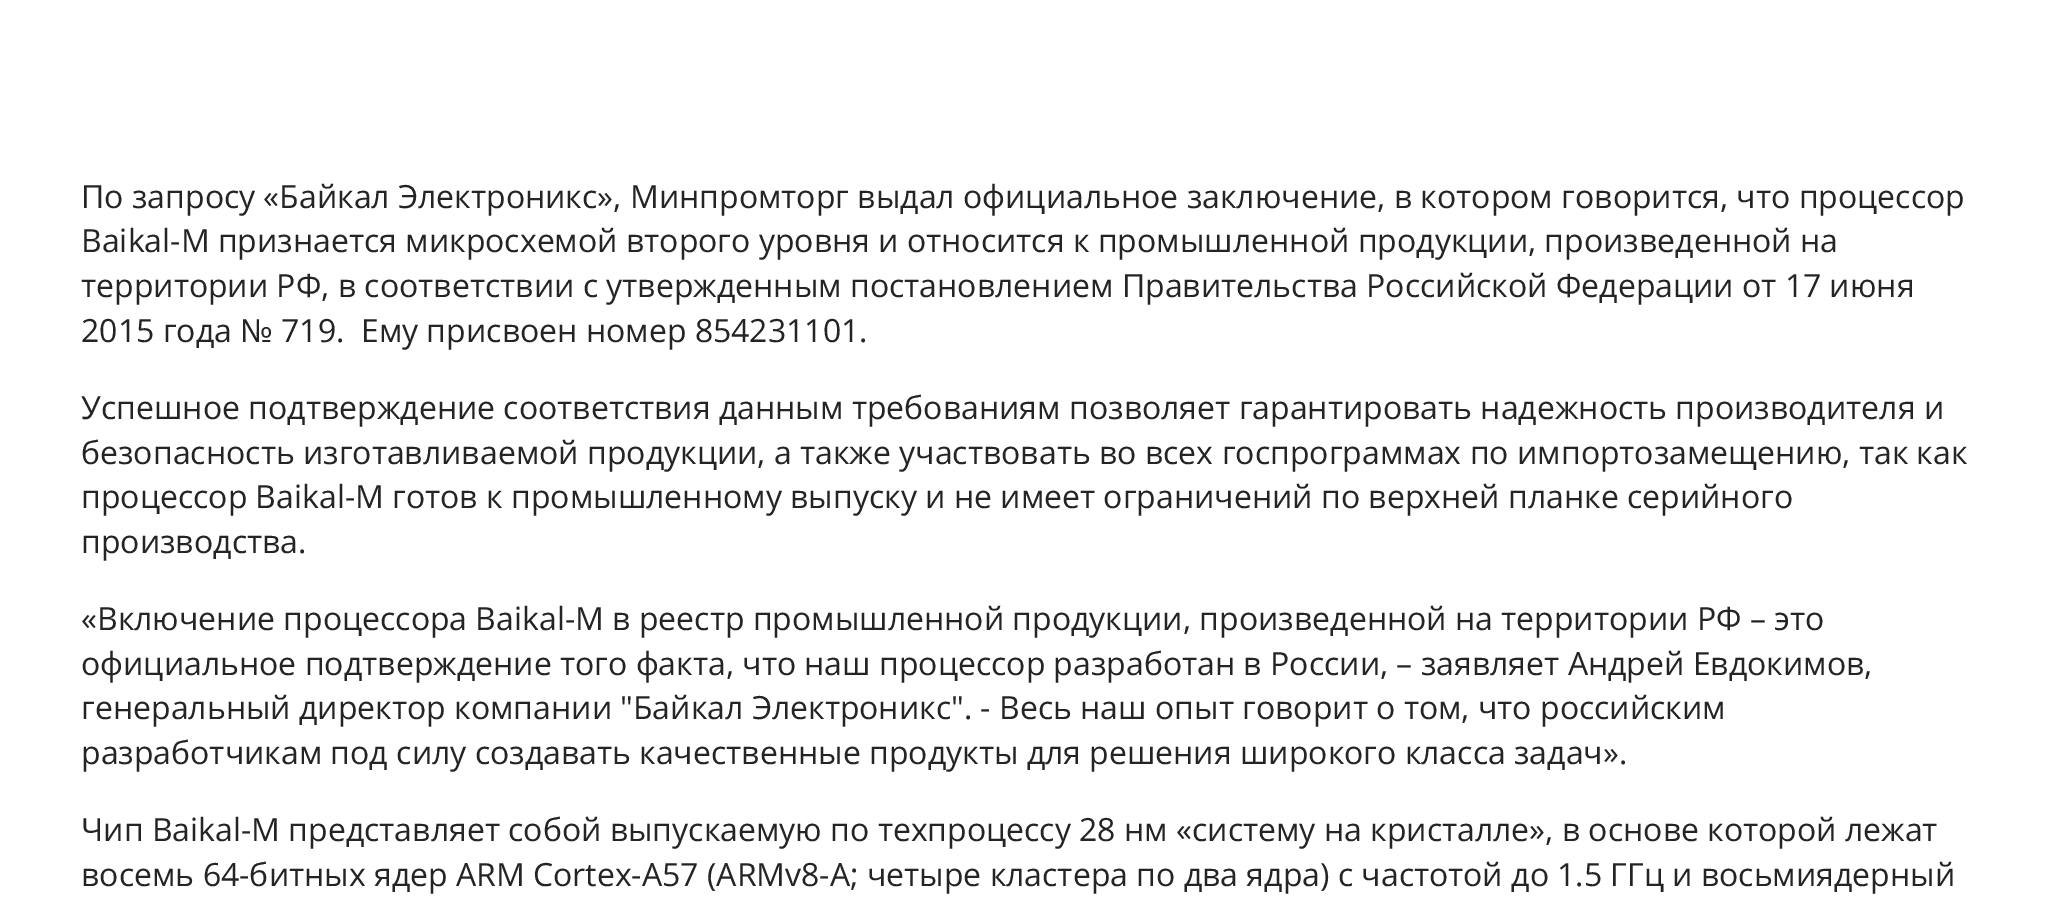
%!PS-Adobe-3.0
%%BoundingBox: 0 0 2053 901
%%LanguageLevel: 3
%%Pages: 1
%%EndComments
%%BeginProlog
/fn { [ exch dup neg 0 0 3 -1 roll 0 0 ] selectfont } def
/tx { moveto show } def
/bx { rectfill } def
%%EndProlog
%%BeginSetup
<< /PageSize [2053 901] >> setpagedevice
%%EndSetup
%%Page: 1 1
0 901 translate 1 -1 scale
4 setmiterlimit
1 setgray
0 0 2053 901 bx
/OpenSans-Regular 32 fn
0.141 setgray
(По запросу «Байкал Электроникс», Минпромторг выдал официальное заключение, в котором говорится, что процессор) 81 208 tx
(Baikal-M признается микросхемой второго уровня и относится к промышленной продукции, произведенной на) 81 252 tx
(территории РФ, в соответствии с утвержденным постановлением Правительства Российской Федерации от 17 июня) 81 297 tx
(2015 года № 719.  Ему присвоен номер 854231101.) 81 342 tx
(Успешное подтверждение соответствия данным требованиям позволяет гарантировать надежность производителя и) 81 419 tx
(безопасность изготавливаемой продукции, а также участвовать во всех госпрограммах по импортозамещению, так как) 81 464 tx
(процессор Baikal-M готов к промышленному выпуску и не имеет ограничений по верхней планке серийного) 81 508 tx
(производства.) 81 553 tx
(«Включение процессора Baikal-M в реестр промышленной продукции, произведенной на территории РФ – это) 81 630 tx
(официальное подтверждение того факта, что наш процессор разработан в России, – заявляет Андрей Евдокимов,) 81 675 tx
(генеральный директор компании "Байкал Электроникс". - Весь наш опыт говорит о том, что российским) 81 719 tx
(разработчикам под силу создавать качественные продукты для решения широкого класса задач».) 81 764 tx
(Чип Baikal-M представляет собой выпускаемую по техпроцессу 28 нм «систему на кристалле», в основе которой лежат) 81 841 tx
(восемь 64-битных ядер ARM Cortex-A57 \(ARMv8-A; четыре кластера по два ядра\) с частотой до 1.5 ГГц и восьмиядерный) 81 886 tx
showpage
%%EOF
